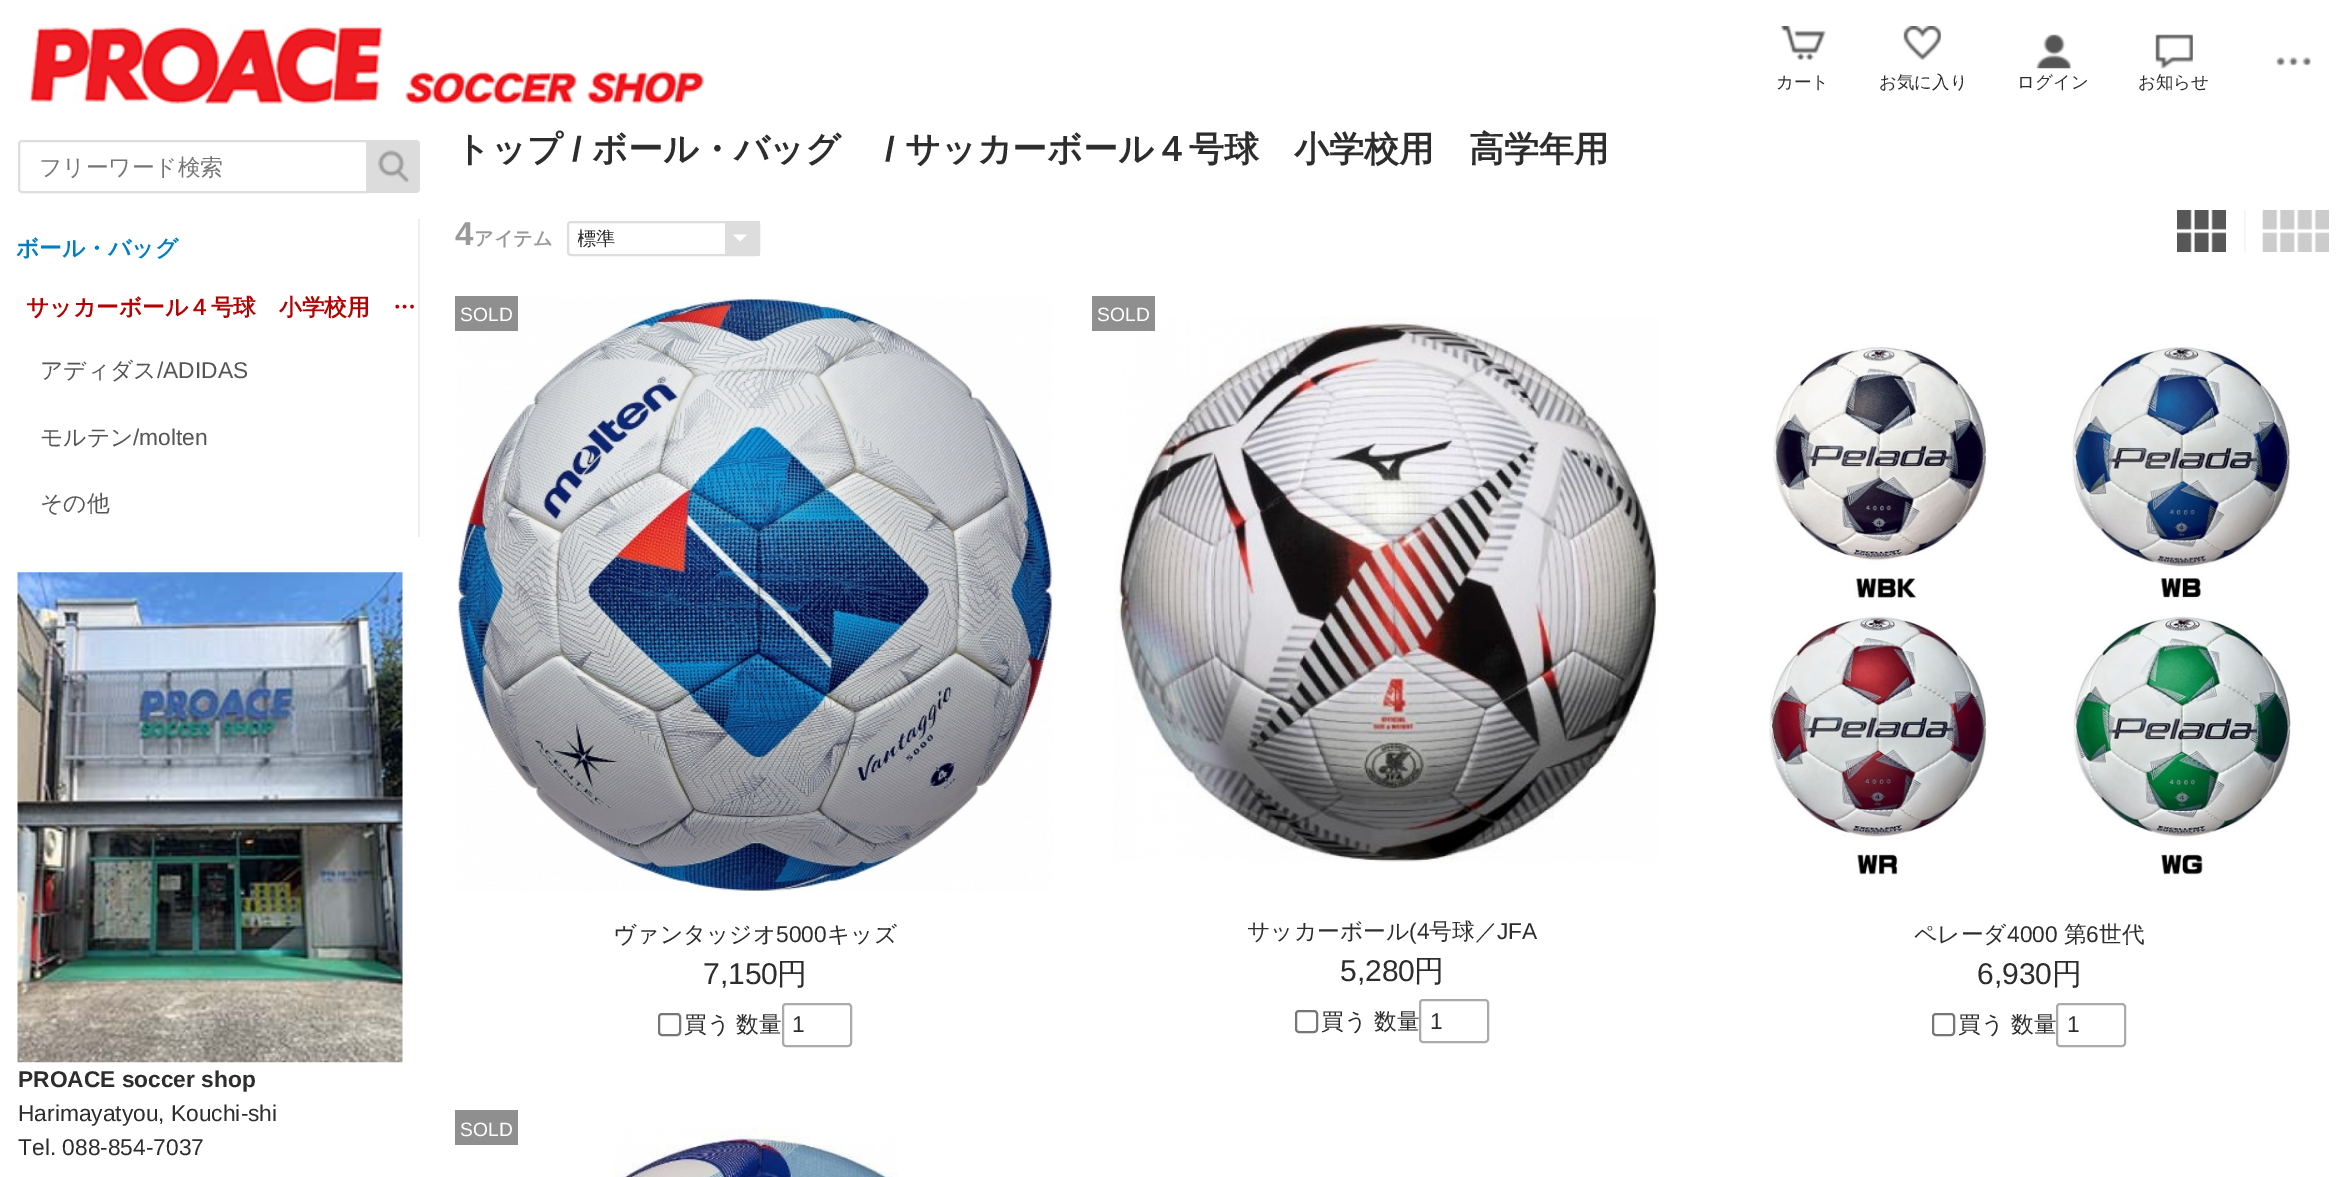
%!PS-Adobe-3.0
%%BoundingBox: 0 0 2346 1177
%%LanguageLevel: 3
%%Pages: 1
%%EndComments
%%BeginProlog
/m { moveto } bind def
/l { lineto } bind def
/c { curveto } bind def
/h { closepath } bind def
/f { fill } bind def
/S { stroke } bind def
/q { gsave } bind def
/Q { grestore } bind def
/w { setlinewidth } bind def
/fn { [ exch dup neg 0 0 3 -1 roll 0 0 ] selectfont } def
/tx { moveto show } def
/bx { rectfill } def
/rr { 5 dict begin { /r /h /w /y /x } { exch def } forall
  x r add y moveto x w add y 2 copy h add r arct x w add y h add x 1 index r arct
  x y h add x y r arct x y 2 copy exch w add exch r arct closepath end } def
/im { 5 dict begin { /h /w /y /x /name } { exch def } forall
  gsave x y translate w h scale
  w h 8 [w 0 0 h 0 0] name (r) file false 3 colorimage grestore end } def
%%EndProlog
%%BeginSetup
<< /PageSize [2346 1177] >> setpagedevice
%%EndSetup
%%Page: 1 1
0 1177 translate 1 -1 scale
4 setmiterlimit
1 setgray
0 0 2346 1177 bx
(image0.raw) 29 23 675 82 im
(image1.raw) 2276 57 35 9 im
(image2.raw) 1780 26 46 35 im
/WenQuanYiZenHei-Medium 17.5 fn
0.176 setgray
(カート) 1776 88 tx
(image3.raw) 1903 26 38 35 im
(お気に入り) 1879 88 tx
(image4.raw) 2036 34 35 35 im
(ログイン) 2017 88 tx
(image5.raw) 2155 34 38 35 im
(お知らせ) 2138 88 tx
0.867 setgray
2 w
22 141 m 367 141 l 367 192 l 22 192 l 20.5 192 19 190.5 19 189 c 19 144 l 19 142.5 20.5 141 22 141 c h S
/WenQuanYiZenHei-Medium 22.75 fn
0.459 setgray
(フリーワード検索) 39 175 tx
0.863 setgray
368 140 m 416 140 l 418 140 420 142 420 144 c 420 189 l 420 191 418 193 416 193 c 368 193 l h f
(image6.raw) 378 150 32 32 im
0.933 setgray
418 219 2 318 bx
/WenQuanYiZenHei-Bold 22.75 fn
0 0.494 0.745 setrgbcolor
(ボール・バッグ) 16 256 tx
0.694 0.012 0.012 setrgbcolor
(サッカーボール４号球　小学校用　…) 26 315 tx
/WenQuanYiZenHei-Medium 22.75 fn
0.333 setgray
(アディダス) 40 378 tx
/LiberationSans-Regular 22.75 fn
(/ADIDAS) 157 378 tx
/WenQuanYiZenHei-Medium 22.75 fn
(モルテン) 40 445 tx
/LiberationSans-Regular 22.75 fn
(/molten) 133 445 tx
/WenQuanYiZenHei-Medium 22.75 fn
(その他) 40 511 tx
(image7.raw) 17 572 386 491 im
/LiberationSans-Bold 22.75 fn
0.176 setgray
(PROACE soccer shop) 18 1087 tx
/LiberationSans-Regular 22.75 fn
(Harimayatyou, Kouchi-shi) 18 1121 tx
(Tel. 088-854-7037) 18 1155 tx
/WenQuanYiZenHei-Bold 35 fn
(トップ) 455 161 tx
/LiberationSans-Bold 35 fn
(/) 572 161 tx
/WenQuanYiZenHei-Bold 35 fn
(ボール・バッグ) 592 161 tx
/LiberationSans-Bold 35 fn
(/) 885 161 tx
/WenQuanYiZenHei-Bold 35 fn
(サッカーボール４号球　小学校用　高学年用) 905 161 tx
/LiberationSans-Bold 33 fn
0.6 setgray
(4) 455 245 tx
/WenQuanYiZenHei-Bold 19.25 fn
(アイテム) 474 245 tx
0.867 setgray
725 221 35 35 bx
1 setgray
733 234.5 m 747 234.5 l 740 241.5 l h f
0.867 setgray
568 222 191 33 3 rr S
q
578 228 136 21 rectclip
/WenQuanYiZenHei-Medium 19.25 fn
0.176 setgray
(標準) 577 245 tx
Q
(image8.raw) 2177 210 49 42 im
0.961 setgray
2244 210 2 42 bx
(image9.raw) 2262 210 67 42 im
(image10.raw) 457 297 596 595 im
0.561 setgray
455 296 63 35 bx
/LiberationSans-Regular 19.25 fn
1 setgray
(SOLD) 460 321 tx
/WenQuanYiZenHei-Medium 22.75 fn
0.176 setgray
(ヴァンタッジオ) 613 942 tx
/LiberationSans-Regular 22.75 fn
(5000) 776 942 tx
/WenQuanYiZenHei-Medium 22.75 fn
(キッズ) 827 942 tx
/LiberationSans-Regular 30 fn
(7,150) 703 984 tx
/WenQuanYiZenHei-Medium 30 fn
(円) 777 984 tx
0.463 setgray
659 1014 21 21 3 rr S
/WenQuanYiZenHei-Medium 22.75 fn
0.176 setgray
(買う) 684 1032 tx
(数量) 736 1032 tx
0.667 setgray
783 1004 68 42 3 rr S
/LiberationSans-Regular 22.75 fn
0.176 setgray
(1) 792 1032 tx
(image11.raw) 1114 316 545 546 im
0.561 setgray
1092 296 63 35 bx
/LiberationSans-Regular 19.25 fn
1 setgray
(SOLD) 1097 321 tx
/WenQuanYiZenHei-Medium 22.75 fn
0.176 setgray
(サッカーボール) 1247 939 tx
/LiberationSans-Regular 22.75 fn
(\(4) 1409 939 tx
/WenQuanYiZenHei-Medium 22.75 fn
(号球／) 1429 939 tx
/LiberationSans-Regular 22.75 fn
(JFA) 1497 939 tx
/LiberationSans-Regular 30 fn
(5,280) 1340 981 tx
/WenQuanYiZenHei-Medium 30 fn
(円) 1414 981 tx
0.463 setgray
1296 1011 21 21 3 rr S
/WenQuanYiZenHei-Medium 22.75 fn
0.176 setgray
(買う) 1321 1029 tx
(数量) 1374 1029 tx
0.667 setgray
1420 1000 68 42 3 rr S
/LiberationSans-Regular 22.75 fn
0.176 setgray
(1) 1430 1029 tx
(image12.raw) 1769 347 522 528 im
/WenQuanYiZenHei-Medium 22.75 fn
(ペレーダ) 1914 942 tx
/LiberationSans-Regular 22.75 fn
(4000) 2007 942 tx
/WenQuanYiZenHei-Medium 22.75 fn
(第) 2064 942 tx
/LiberationSans-Regular 22.75 fn
(6) 2086 942 tx
/WenQuanYiZenHei-Medium 22.75 fn
(世代) 2099 942 tx
/LiberationSans-Regular 30 fn
(6,930) 1977 984 tx
/WenQuanYiZenHei-Medium 30 fn
(円) 2052 984 tx
0.463 setgray
1933 1014 21 21 3 rr S
/WenQuanYiZenHei-Medium 22.75 fn
0.176 setgray
(買う) 1958 1032 tx
(数量) 2011 1032 tx
0.667 setgray
2057 1004 68 42 3 rr S
/LiberationSans-Regular 22.75 fn
0.176 setgray
(1) 2067 1032 tx
0.561 setgray
455 1110 63 35 bx
/LiberationSans-Regular 19.25 fn
1 setgray
(SOLD) 460 1136 tx
(image13.raw) 614 1127 284 50 im
showpage
%%EOF
